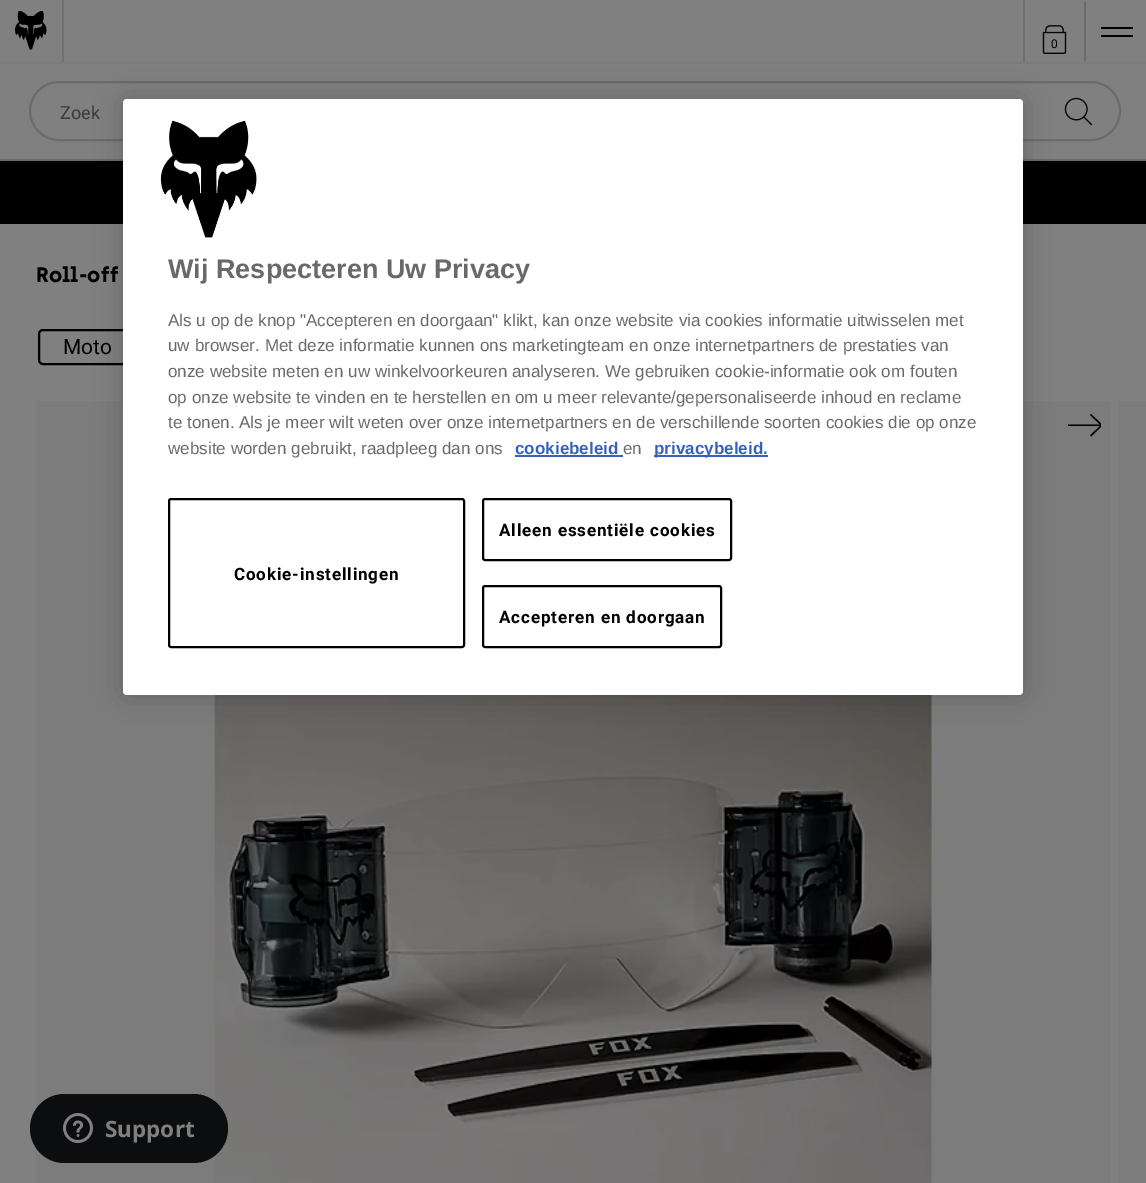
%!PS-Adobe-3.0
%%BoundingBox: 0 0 1146 1183
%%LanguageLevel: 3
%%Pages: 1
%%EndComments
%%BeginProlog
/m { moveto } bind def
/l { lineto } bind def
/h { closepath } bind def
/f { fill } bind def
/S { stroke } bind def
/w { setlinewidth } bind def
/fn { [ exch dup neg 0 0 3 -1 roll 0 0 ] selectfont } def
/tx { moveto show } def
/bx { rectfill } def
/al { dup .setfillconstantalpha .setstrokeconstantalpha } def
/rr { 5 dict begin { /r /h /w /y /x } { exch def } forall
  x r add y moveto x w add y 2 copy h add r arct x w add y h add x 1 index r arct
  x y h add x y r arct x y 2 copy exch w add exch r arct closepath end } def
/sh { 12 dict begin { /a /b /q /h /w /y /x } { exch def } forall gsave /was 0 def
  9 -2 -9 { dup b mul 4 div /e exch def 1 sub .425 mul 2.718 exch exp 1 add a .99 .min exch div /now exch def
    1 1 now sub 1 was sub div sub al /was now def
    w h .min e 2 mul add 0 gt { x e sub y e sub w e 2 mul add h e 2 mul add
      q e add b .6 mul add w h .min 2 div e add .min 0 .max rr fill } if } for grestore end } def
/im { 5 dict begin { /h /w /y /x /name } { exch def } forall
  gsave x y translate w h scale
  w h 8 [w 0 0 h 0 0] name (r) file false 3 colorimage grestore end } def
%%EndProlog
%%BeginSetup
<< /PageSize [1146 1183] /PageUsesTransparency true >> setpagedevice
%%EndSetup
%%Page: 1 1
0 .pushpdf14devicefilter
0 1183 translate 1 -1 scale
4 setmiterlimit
0.502 setgray
0 0 1146 1183 bx
0.42 setgray
0 159 1146 2 bx
0.486 setgray
0 62 1146 2 bx
0.439 setgray
62 0 2 62 bx
(image0.raw) 15 11 32 39 im
1023 0 2 62 bx
(image1.raw) 1042 25 25 29 im
/Roboto-Regular 12 fn
0 setgray
(0) 1051 48 tx
0.42 setgray
1084 62 m 1084 0 l 1086 2 l 1086 60 l h f
0 setgray
1101 27 32 2 bx
1101 35 32 2 bx
0.42 setgray
2 w
30 82 1090 58 29 rr S
/Roboto-Regular 18 fn
0.231 setgray
(Zoek) 60 119 tx
(image2.raw) 1064 97 29 29 im
0 setgray
0 161 1146 63 bx
/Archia-Bold 21 fn
(Roll-off) 36 282 tx
39 330 98 34 4 rr S
/Roboto-Regular 21 fn
(Moto) 63 354 tx
0.486 setgray
36 401 1074 782 bx
(image3.raw) 214 695 718 488 im
1119 401 27 782 bx
0 setgray
1091 414 m 1090 415 l 1100 424.5 l 1068 424.5 l 1068 426 l 1100 426 l 1090 435.5 l 1091 436.5 l 1101 427 l 1101 423.5 l h f
0.047 0.051 0.055 setrgbcolor
30 1094 198 69 34.5 rr f
(image4.raw) 63 1113 30 30 im
/NotoSans-Bold 22.5 fn
0.502 setgray
(Support) 105 1137 tx
0 setgray
123 99 900 596 4 13.5 0.2 sh
1 setgray
123 99 900 596 4 rr f
(image5.raw) 160 120 97 118 im
/LiberationSans-Bold 27 fn
0.412 setgray
(Wij Respecteren Uw Privacy) 168 278 tx
/LiberationSans-Regular 17.05 fn
(Als u op de knop "Accepteren en doorgaan" klikt, kan onze website via cookies informatie uitwisselen met) 168 326 tx
(uw browser. Met deze informatie kunnen ons marketingteam en onze internetpartners de prestaties van) 168 351 tx
(onze website meten en uw winkelvoorkeuren analyseren. We gebruiken cookie-informatie ook om fouten) 168 377 tx
(op onze website te vinden en te herstellen en om u meer relevante/gepersonaliseerde inhoud en reclame) 168 403 tx
(te tonen. Als je meer wilt weten over onze internetpartners en de verschillende soorten cookies die op onze) 168 428 tx
(website worden gebruikt, raadpleeg dan ons) 168 454 tx
/LiberationSans-Bold 17.05 fn
0.22 0.376 0.745 setrgbcolor
(cookiebeleid) 515 454 tx
515 455 108 2 bx
/LiberationSans-Regular 17.05 fn
0.412 setgray
(en) 623 454 tx
0.22 0.376 0.745 setrgbcolor
654 455 114 2 bx
/LiberationSans-Bold 17.05 fn
(privacybeleid.) 654 454 tx
0 setgray
169 499 295 148 2 rr S
/Roboto-Bold 17.05 fn
234 580 m 0.85 0 (Cookie-instellingen) ashow
483 499 248 61 2 rr S
499 536 m 0.85 0 (Alleen essentiële cookies) ashow
483 586 238 61 2 rr S
499 623 m 0.85 0 (Accepteren en doorgaan) ashow
.poppdf14devicefilter showpage
%%EOF
